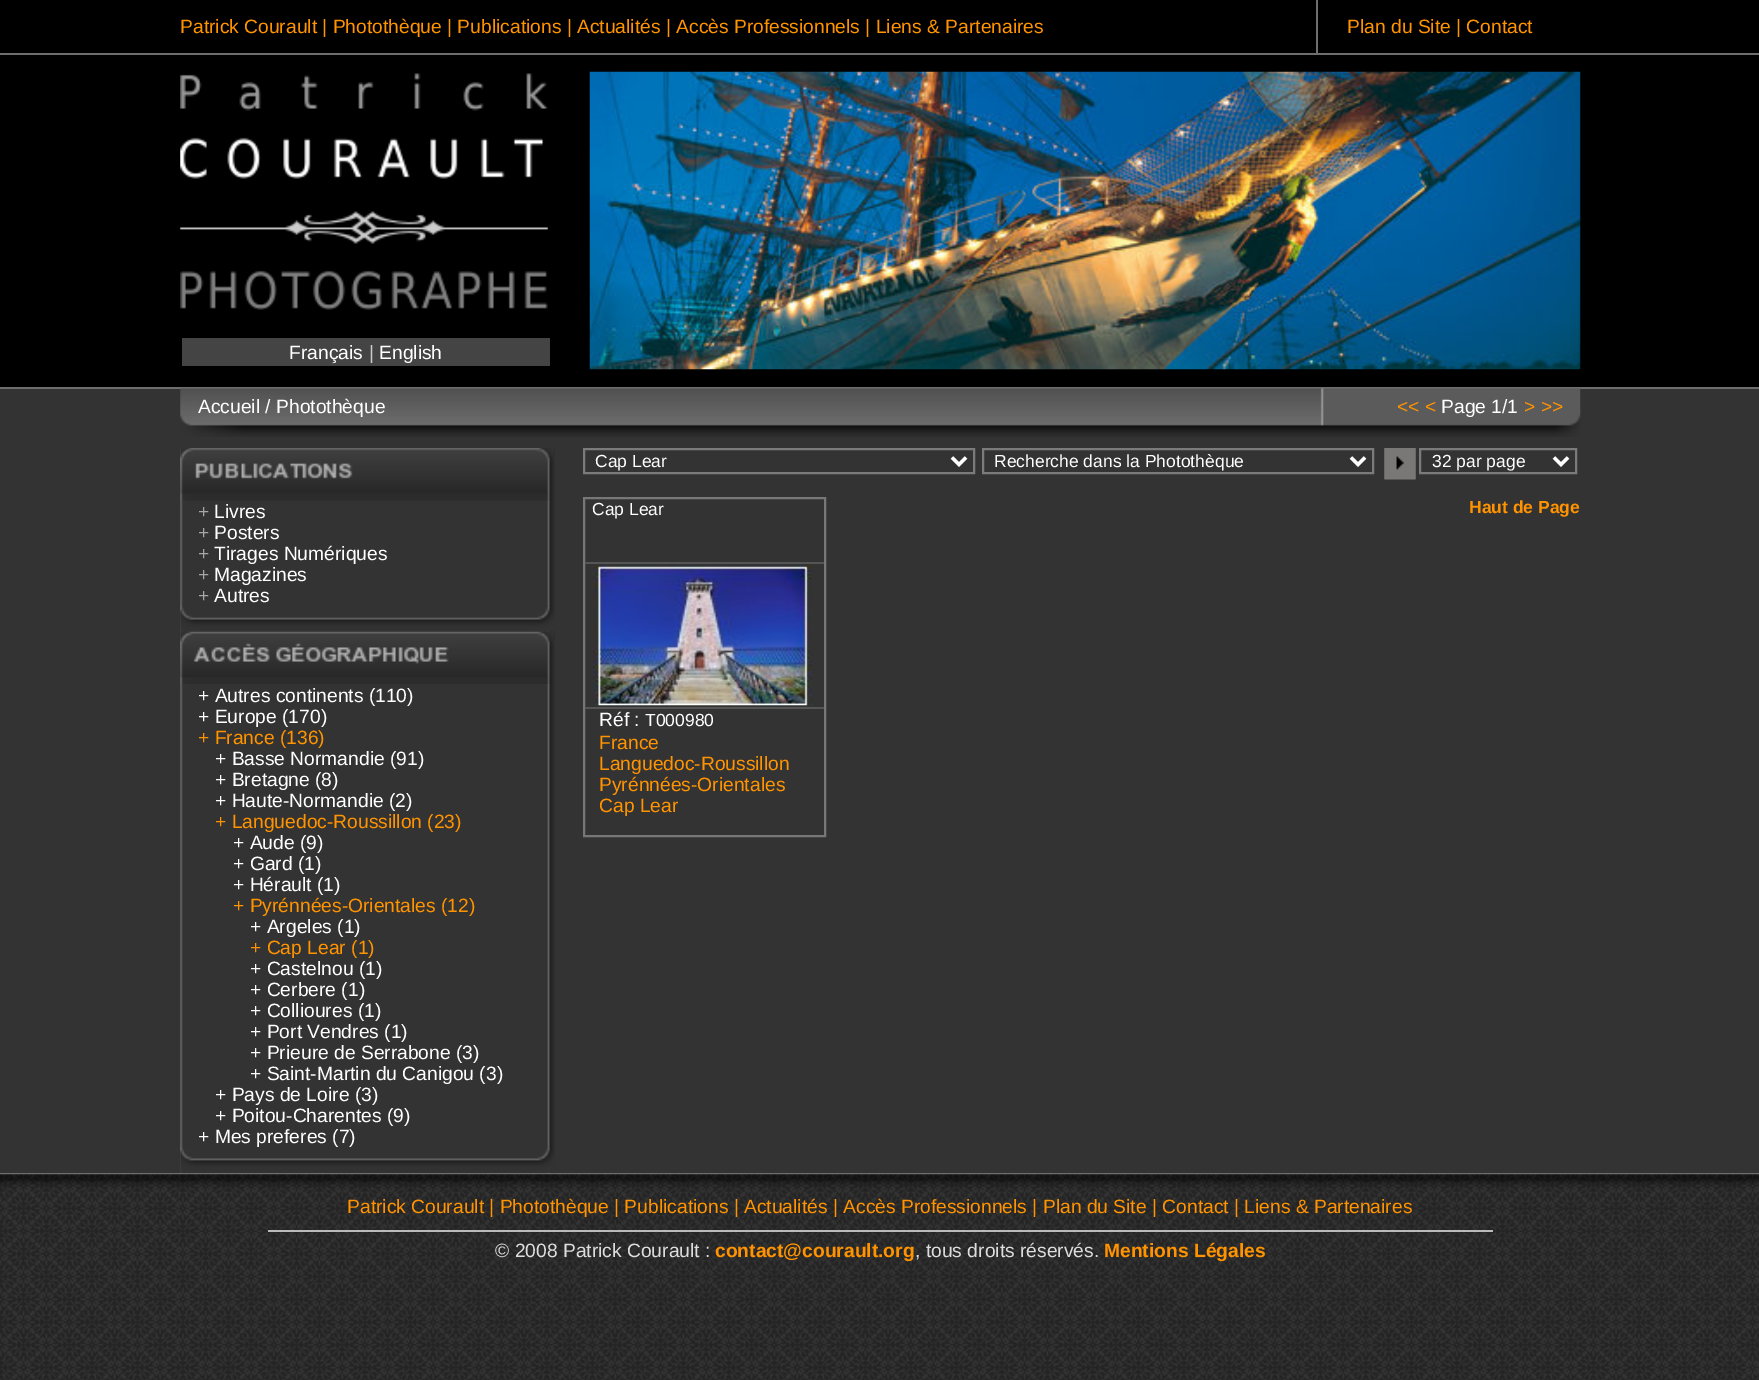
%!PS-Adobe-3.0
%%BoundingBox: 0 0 1759 1380
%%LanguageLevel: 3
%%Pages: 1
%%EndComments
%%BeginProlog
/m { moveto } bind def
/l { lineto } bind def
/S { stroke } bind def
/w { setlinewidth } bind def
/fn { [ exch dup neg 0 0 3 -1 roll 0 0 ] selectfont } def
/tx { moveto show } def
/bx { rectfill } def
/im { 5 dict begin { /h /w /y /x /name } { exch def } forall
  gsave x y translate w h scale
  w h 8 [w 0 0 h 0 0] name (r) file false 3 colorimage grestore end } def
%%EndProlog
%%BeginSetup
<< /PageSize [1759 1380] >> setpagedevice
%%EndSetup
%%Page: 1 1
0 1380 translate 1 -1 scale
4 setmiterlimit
0 setgray
0 0 1759 1380 bx
0.431 setgray
0 53 1759 2 bx
/LiberationSans-Regular 19.25 fn
1 0.576 0 setrgbcolor
(Patrick Courault | Photothèque | Publications | Actualités | Accès Professionnels | Liens & Partenaires) 180 33 tx
0.431 setgray
1316 0 2 53 bx
1 0.576 0 setrgbcolor
(Plan du Site | Contact) 1347 33 tx
0.431 setgray
0 387 1759 2 bx
(image0.raw) 180 73 368 237 im
(image1.raw) 589 71 992 299 im
0.267 setgray
182 338 368 28 bx
1 setgray
(Français) 289 359 tx
0.8 setgray
(|) 369 359 tx
1 setgray
(English) 379 359 tx
0.2 setgray
0 389 1759 784 bx
0.431 setgray
0 1173 1759 2 bx
(image2.raw) 180 388 1401 49 im
1 setgray
(Accueil / Photothèque) 198 413 tx
1 0.576 0 setrgbcolor
(<< <) 1397 413 tx
1 setgray
(Page 1/1) 1441 413 tx
1 0.576 0 setrgbcolor
(> >>) 1524 413 tx
(image3.raw) 180 448 375 725 im
(image4.raw) 180 448 374 53 im
0.655 setgray
(+) 198 518 tx
1 setgray
(Livres) 214 518 tx
0.655 setgray
(+) 198 539 tx
1 setgray
(Posters) 214 539 tx
0.655 setgray
(+) 198 560 tx
1 setgray
(Tirages Numériques) 214 560 tx
0.655 setgray
(+) 198 581 tx
1 setgray
(Magazines) 214 581 tx
0.655 setgray
(+) 198 602 tx
1 setgray
(Autres) 214 602 tx
(image5.raw) 180 605 375 27 im
(image6.raw) 180 631 374 53 im
(+ Autres continents \(110\)) 198 702 tx
(+ Europe \(170\)) 198 723 tx
1 0.576 0 setrgbcolor
(+ France \(136\)) 198 744 tx
1 setgray
(+ Basse Normandie \(91\)) 215 765 tx
(+ Bretagne \(8\)) 215 786 tx
(+ Haute-Normandie \(2\)) 215 807 tx
1 0.576 0 setrgbcolor
(+ Languedoc-Roussillon \(23\)) 215 828 tx
1 setgray
(+ Aude \(9\)) 233 849 tx
(+ Gard \(1\)) 233 870 tx
(+ Hérault \(1\)) 233 891 tx
1 0.576 0 setrgbcolor
(+ Pyrénnées-Orientales \(12\)) 233 912 tx
1 setgray
(+ Argeles \(1\)) 250 933 tx
1 0.576 0 setrgbcolor
(+ Cap Lear \(1\)) 250 954 tx
1 setgray
(+ Castelnou \(1\)) 250 975 tx
(+ Cerbere \(1\)) 250 996 tx
(+ Collioures \(1\)) 250 1017 tx
(+ Port Vendres \(1\)) 250 1038 tx
(+ Prieure de Serrabone \(3\)) 250 1059 tx
(+ Saint-Martin du Canigou \(3\)) 250 1080 tx
(+ Pays de Loire \(3\)) 215 1101 tx
(+ Poitou-Charentes \(9\)) 215 1122 tx
(image7.raw) 180 1146 375 27 im
(+ Mes preferes \(7\)) 198 1143 tx
0.482 0.482 0.486 setrgbcolor
2 w
584 449 390 24 rectstroke
1 setgray
3.5 w
952 457.5 m 959 464.5 l 966 457.5 l S
/LiberationSans-Regular 17.5 fn
(Cap Lear) 595 467 tx
0.482 0.482 0.486 setrgbcolor
2 w
983 449 390 24 rectstroke
1 setgray
3.5 w
1351 457.5 m 1358 464.5 l 1365 457.5 l S
(Recherche dans la Photothèque) 994 467 tx
(image8.raw) 1384 448 32 32 im
0.482 0.482 0.486 setrgbcolor
2 w
1420 449 156 24 rectstroke
1 setgray
3.5 w
1554 457.5 m 1561 464.5 l 1568 457.5 l S
(32 par page) 1432 467 tx
0.467 setgray
2 w
584 498 241 338 rectstroke
0.333 setgray
585 562 239 2 bx
1 setgray
(Cap Lear) 592 515 tx
(image9.raw) 593 565 219 141 im
0.333 setgray
585 707 239 2 bx
/LiberationSans-Regular 19.25 fn
1 setgray
(Réf :) 599 726 tx
/LiberationSans-Regular 17.5 fn
(T000980) 645 726 tx
/LiberationSans-Regular 19.25 fn
1 0.576 0 setrgbcolor
(France) 599 749 tx
(Languedoc-Roussillon) 599 770 tx
(Pyrénnées-Orientales) 599 791 tx
(Cap Lear) 599 812 tx
/LiberationSans-Bold 17.5 fn
(Haut de Page) 1469 513 tx
(image10.raw) 0 1174 1759 206 im
/LiberationSans-Regular 19.25 fn
(Patrick Courault | Photothèque | Publications | Actualités | Accès Professionnels | Plan du Site | Contact | Liens & Partenaires) 347 1213 tx
0.733 setgray
268 1230 1225 2 bx
0.867 setgray
(© 2008 Patrick Courault :) 495 1257 tx
/LiberationSans-Bold 19.25 fn
1 0.576 0 setrgbcolor
(contact@courault.org) 715 1257 tx
/LiberationSans-Regular 19.25 fn
0.867 setgray
(, tous droits réservés.) 915 1257 tx
/LiberationSans-Bold 19.25 fn
1 0.576 0 setrgbcolor
(Mentions Légales) 1104 1257 tx
showpage
%%EOF
